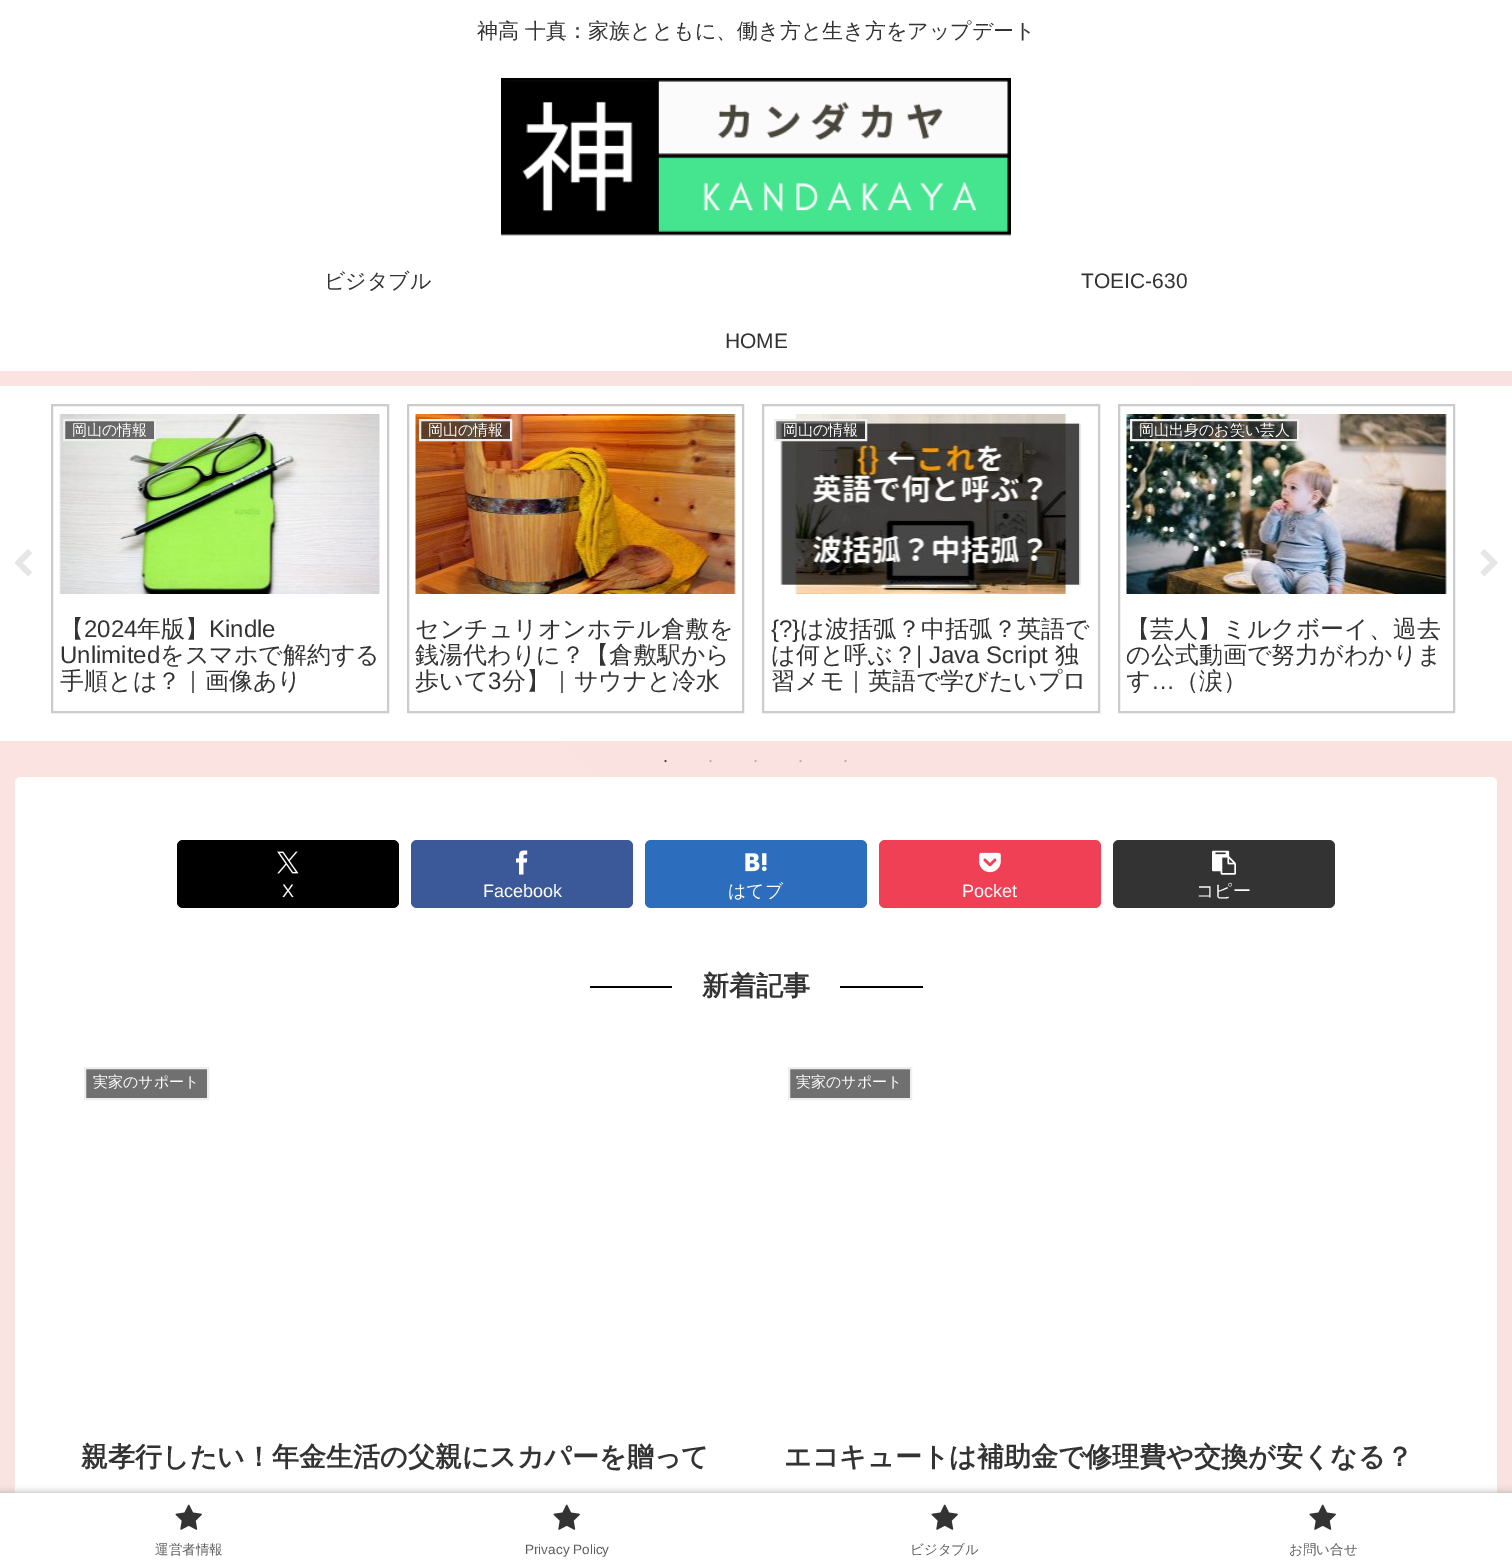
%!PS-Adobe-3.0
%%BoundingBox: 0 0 1512 1567
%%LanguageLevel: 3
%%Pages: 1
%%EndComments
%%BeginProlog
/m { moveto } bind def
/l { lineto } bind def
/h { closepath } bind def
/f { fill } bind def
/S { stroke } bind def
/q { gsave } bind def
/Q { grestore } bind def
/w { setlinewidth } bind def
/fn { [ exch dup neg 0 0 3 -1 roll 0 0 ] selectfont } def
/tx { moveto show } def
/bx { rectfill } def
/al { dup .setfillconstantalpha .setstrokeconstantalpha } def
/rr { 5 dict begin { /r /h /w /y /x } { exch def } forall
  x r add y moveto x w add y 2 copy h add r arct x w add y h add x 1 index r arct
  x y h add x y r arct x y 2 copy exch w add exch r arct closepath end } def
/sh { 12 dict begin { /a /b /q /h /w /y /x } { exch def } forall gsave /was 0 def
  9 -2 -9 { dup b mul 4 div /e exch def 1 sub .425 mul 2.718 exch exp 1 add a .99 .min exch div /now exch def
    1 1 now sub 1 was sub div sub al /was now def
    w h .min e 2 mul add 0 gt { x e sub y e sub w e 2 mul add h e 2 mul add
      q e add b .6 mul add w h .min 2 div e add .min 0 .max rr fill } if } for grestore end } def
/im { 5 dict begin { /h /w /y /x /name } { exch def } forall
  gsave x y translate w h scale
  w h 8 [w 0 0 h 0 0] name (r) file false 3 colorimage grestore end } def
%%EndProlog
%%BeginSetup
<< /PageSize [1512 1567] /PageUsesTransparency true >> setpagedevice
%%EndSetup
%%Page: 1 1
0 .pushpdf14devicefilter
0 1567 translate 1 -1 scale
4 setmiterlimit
1 setgray
0 0 1512 1567 bx
/WenQuanYiZenHei-Medium 21 fn
0.2 setgray
(神高 十真：家族とともに、働き方と生き方をアップデート) 477 38 tx
(image0.raw) 501 78 510 158 im
(ビジタブル) 324 288 tx
/LiberationSans-Regular 21 fn
(TOEIC-630) 1081 288 tx
(HOME) 725 348 tx
q 0 371 m 1512 371 l 1512 1493 l 0 1493 l h clip newpath
<< /ShadingType 2 /ColorSpace /DeviceRGB /Coords [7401 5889 -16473 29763] /Extend [true true] /Function << /FunctionType 3 /Domain [0 1] /Functions [<< /FunctionType 2 /Domain [0 1] /C0 [0.98 0.882 0.882] /C1 [0.98 0.945 0.882] /N 1 >> << /FunctionType 2 /Domain [0 1] /C0 [0.98 0.945 0.882] /C1 [0.878 0.882 0.984] /N 1 >> << /FunctionType 2 /Domain [0 1] /C0 [0.878 0.882 0.984] /C1 [0.98 0.882 0.984] /N 1 >>] /Bounds [0.33 0.67] /Encode [0 1 0 1 0 1] >> >> shfill Q
1 setgray
0 386 1512 355 bx
(image1.raw) 14 549 18 27 im
0.8 setgray
2 w
52 405 336 307 rectstroke
(image2.raw) 59 414 321 180 im
0.7 al
0.2 setgray
64 420 m 155 420 l 155 440 l 64 440 l h f
1 al
0.933 setgray
64 420 m 155 420 l 155 440 l 64 440 l h S
/WenQuanYiZenHei-Medium 15 fn
1 setgray
(岡山の情報) 72 435 tx
/WenQuanYiZenHei-Medium 24 fn
0.2 setgray
(【) 60 637 tx
/LiberationSans-Regular 24 fn
(2024) 84 637 tx
/WenQuanYiZenHei-Medium 24 fn
(年版】) 137 637 tx
/LiberationSans-Regular 24 fn
(Kindle) 209 637 tx
(Unlimited) 60 663 tx
/WenQuanYiZenHei-Medium 24 fn
(をスマホで解約する) 160 663 tx
q
60 615 320 78 rectclip
(手順とは？｜画像あり) 60 689 tx
Q
0.8 setgray
408 405 335 307 rectstroke
(image3.raw) 415 414 321 180 im
0.7 al
0.2 setgray
420 420 m 511 420 l 511 440 l 420 440 l h f
1 al
0.933 setgray
420 420 m 511 420 l 511 440 l 420 440 l h S
/WenQuanYiZenHei-Medium 15 fn
1 setgray
(岡山の情報) 428 435 tx
/WenQuanYiZenHei-Medium 24 fn
0.2 setgray
(センチュリオンホテル倉敷を) 415 637 tx
(銭湯代わりに？【倉敷駅から) 415 663 tx
(歩いて) 415 689 tx
/LiberationSans-Regular 24 fn
(3) 488 689 tx
q
416 615 319 78 rectclip
/WenQuanYiZenHei-Medium 24 fn
(分】｜サウナと冷水) 502 689 tx
Q
0.8 setgray
763 405 336 307 rectstroke
(image4.raw) 779 414 303 180 im
0.7 al
0.2 setgray
775 420 m 866 420 l 866 440 l 775 440 l h f
1 al
0.933 setgray
775 420 m 866 420 l 866 440 l 775 440 l h S
/WenQuanYiZenHei-Medium 15 fn
1 setgray
(岡山の情報) 783 435 tx
/LiberationSans-Regular 24 fn
0.2 setgray
({?}) 771 637 tx
/WenQuanYiZenHei-Medium 24 fn
(は波括弧？中括弧？英語で) 800 637 tx
(は何と呼ぶ？) 771 663 tx
/LiberationSans-Regular 24 fn
(| Java Script) 916 663 tx
/WenQuanYiZenHei-Medium 24 fn
(独) 1055 663 tx
q
771 615 320 78 rectclip
(習メモ｜英語で学びたいプロ) 771 689 tx
Q
0.8 setgray
1119 405 335 307 rectstroke
(image5.raw) 1126 414 321 180 im
0.7 al
0.2 setgray
1131 420 m 1298 420 l 1298 440 l 1131 440 l h f
1 al
0.933 setgray
1131 420 m 1298 420 l 1298 440 l 1131 440 l h S
/WenQuanYiZenHei-Medium 15 fn
1 setgray
(岡山出身のお笑い芸人) 1139 435 tx
/WenQuanYiZenHei-Medium 24 fn
0.2 setgray
(【芸人】ミルクボーイ、過去) 1126 637 tx
(の公式動画で努力がわかりま) 1126 663 tx
q
1127 615 319 78 rectclip
(す) 1126 689 tx
Q
/LiberationSans-Regular 24 fn
(…) 1151 689 tx
q
1127 615 319 78 rectclip
/WenQuanYiZenHei-Medium 24 fn
(（涙）) 1175 689 tx
Q
(image6.raw) 1480 549 18 27 im
/LiberationSerif-Regular 9 fn
0.247 0.224 0.22 setrgbcolor
(•) 664 764 tx
0.737 0.667 0.663 setrgbcolor
(•) 709 764 tx
(•) 754 764 tx
(•) 799 764 tx
(•) 844 764 tx
1 setgray
15 777 1482 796 6 rr f
0 setgray
177 840 222 68 6 rr f
(image7.raw) 277 851 22 23 im
/LiberationSans-Regular 18 fn
1 setgray
(X) 282 897 tx
0.231 0.349 0.596 setrgbcolor
411 840 222 68 6 rr f
(image8.raw) 516 850 12 25 im
1 setgray
(Facebook) 483 897 tx
0.173 0.431 0.741 setrgbcolor
645 840 222 68 6 rr f
(image9.raw) 745 853 22 19 im
/WenQuanYiZenHei-Medium 18 fn
1 setgray
(はてブ) 728 897 tx
0.937 0.251 0.337 setrgbcolor
879 840 222 68 6 rr f
(image10.raw) 979 852 22 21 im
/LiberationSans-Regular 18 fn
1 setgray
(Pocket) 962 897 tx
0.2 setgray
1113 840 222 68 6 rr f
(image11.raw) 1212 850 24 25 im
/WenQuanYiZenHei-Medium 18 fn
1 setgray
(コピー) 1196 897 tx
0 setgray
590 986 82 2 bx
/WenQuanYiZenHei-Bold 27 fn
0.2 setgray
(新着記事) 702 995 tx
0 setgray
840 986 83 2 bx
0.439 setgray
85 1068 m 208 1068 l 208 1099 l 85 1099 l h q f Q
0.933 setgray
S
/WenQuanYiZenHei-Medium 15 fn
1 setgray
(実家のサポート) 93 1087 tx
/WenQuanYiZenHei-Bold 27 fn
0.2 setgray
(親孝行したい！年金生活の父親にスカパーを贈って) 81 1466 tx
0.439 setgray
789 1068 m 911 1068 l 911 1099 l 789 1099 l h q f Q
0.933 setgray
S
/WenQuanYiZenHei-Medium 15 fn
1 setgray
(実家のサポート) 796 1087 tx
/WenQuanYiZenHei-Bold 27 fn
0.2 setgray
(エコキュートは補助金で修理費や交換が安くなる？) 784 1466 tx
0.663 setgray
0 1493 1512 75 0 4 1 sh
1 setgray
0 1493 1512 74 bx
(image12.raw) 175 1504 27 26 im
/WenQuanYiZenHei-Medium 13.5 fn
0.361 setgray
(運営者情報) 155 1554 tx
(image12.raw) 553 1504 27 26 im
/LiberationSans-Regular 13.5 fn
(Privacy Policy) 525 1554 tx
(image12.raw) 931 1504 27 26 im
/WenQuanYiZenHei-Medium 13.5 fn
(ビジタブル) 910 1554 tx
(image12.raw) 1309 1504 27 26 im
(お問い合せ) 1289 1554 tx
.poppdf14devicefilter showpage
%%EOF
